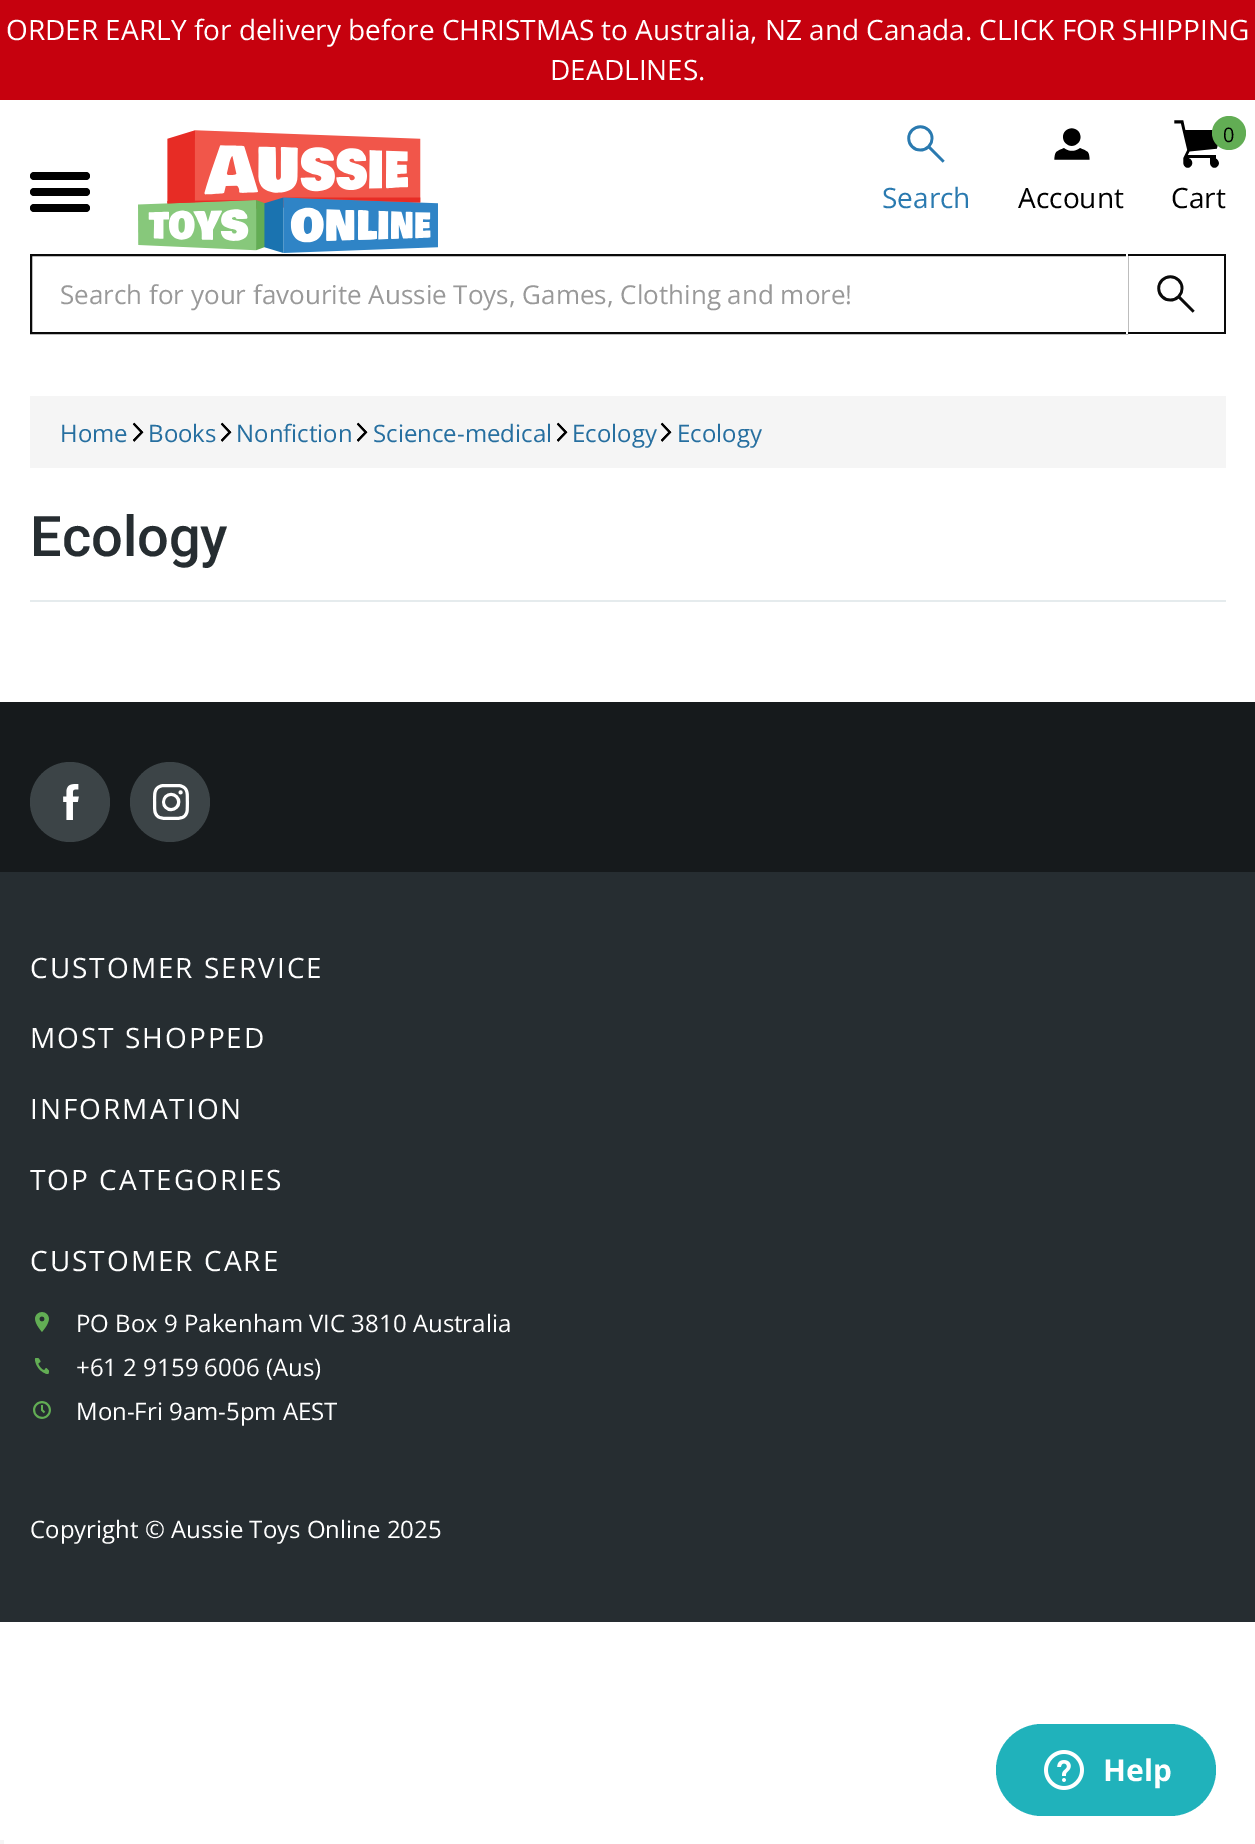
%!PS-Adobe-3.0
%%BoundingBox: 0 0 1255 1844
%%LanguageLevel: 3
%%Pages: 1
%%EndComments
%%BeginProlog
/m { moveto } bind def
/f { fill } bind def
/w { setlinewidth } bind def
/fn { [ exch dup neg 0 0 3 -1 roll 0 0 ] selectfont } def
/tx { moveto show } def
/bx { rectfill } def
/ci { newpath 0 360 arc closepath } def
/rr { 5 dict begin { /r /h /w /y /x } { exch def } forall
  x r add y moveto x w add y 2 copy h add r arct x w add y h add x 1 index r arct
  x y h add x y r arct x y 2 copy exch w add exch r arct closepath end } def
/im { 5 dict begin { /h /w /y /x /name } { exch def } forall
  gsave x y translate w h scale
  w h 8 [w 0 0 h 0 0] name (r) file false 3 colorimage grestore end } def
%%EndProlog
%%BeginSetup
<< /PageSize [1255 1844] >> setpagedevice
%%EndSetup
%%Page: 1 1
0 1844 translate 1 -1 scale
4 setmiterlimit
1 setgray
0 0 1255 1844 bx
0.776 0.004 0.055 setrgbcolor
0 0 1255 100 bx
/OpenSans-Regular 28 fn
1 setgray
(ORDER EARLY for delivery before CHRISTMAS to Australia, NZ and Canada. CLICK FOR SHIPPING) 6 40 tx
(DEADLINES.) 550 80 tx
0 setgray
30 172 60 8 4 rr f
30 188 60 8 4 rr f
30 204 60 8 4 rr f
(image0.raw) 138 130 300 123 im
(image1.raw) 907 125 38 38 im
0.165 0.478 0.69 setrgbcolor
(Search) 882 208 tx
(image2.raw) 1054 128 36 32 im
0 setgray
(Account) 1018 208 tx
(image3.raw) 1174 120 45 48 im
0.384 0.678 0.329 setrgbcolor
1229 133 17 ci f
/OpenSans-Regular 20 fn
0 setgray
(0) 1223 142 tx
/OpenSans-Regular 28 fn
(Cart) 1171 208 tx
0.039 setgray
2 w
31 255 1096 78 rectstroke
/OpenSans-Regular 26 fn
0.6 setgray
(Search for your favourite Aussie Toys, Games, Clothing and more!) 60 304 tx
0.039 setgray
1126 254 100 2 bx
1224 254 2 80 bx
1126 332 100 2 bx
1 setgray
1126 254 2 80 bx
(image4.raw) 1157 275 38 38 im
0.961 setgray
30 396 1196 72 bx
/OpenSans-Regular 24 fn
0.149 0.435 0.627 setrgbcolor
(Home) 60 442 tx
(image5.raw) 132 422 12 20 im
(Books) 148 442 tx
(image5.raw) 220 422 12 20 im
(Nonfiction) 236 442 tx
(image5.raw) 356 422 12 20 im
(Science-medical) 373 442 tx
(image5.raw) 556 422 12 20 im
(Ecology) 572 442 tx
(image5.raw) 660 422 12 20 im
(Ecology) 677 442 tx
0.898 0.922 0.929 setrgbcolor
30 600 1196 2 bx
/Roboto-Medium 56 fn
0.149 0.176 0.192 setrgbcolor
(Ecology) 30 556 tx
0 872 1255 750 bx
0.086 0.102 0.11 setrgbcolor
0 702 1255 170 bx
0.235 0.267 0.278 setrgbcolor
70 802 40 ci f
(image6.raw) 63 784 16 36 im
170 802 40 ci f
(image7.raw) 152 784 37 36 im
/OpenSans-Regular 28 fn
1 setgray
30 978 m 2 0 (CUSTOMER SERVICE) ashow
30 1048 m 2 0 (MOST SHOPPED) ashow
30 1119 m 2 0 (INFORMATION) ashow
30 1190 m 2 0 (TOP CATEGORIES) ashow
30 1271 m 2 0 (CUSTOMER CARE) ashow
(image8.raw) 35 1312 14 20 im
/OpenSans-Regular 24 fn
(PO Box 9 Pakenham VIC 3810 Australia) 76 1332 tx
(image9.raw) 34 1358 15 16 im
(+61 2 9159 6006 \(Aus\)) 76 1376 tx
(image10.raw) 33 1401 18 18 im
(Mon-Fri 9am-5pm AEST) 76 1420 tx
(Copyright © Aussie Toys Online 2025) 30 1538 tx
0.125 0.698 0.733 setrgbcolor
996 1724 220 92 46 rr f
(image11.raw) 1044 1750 40 40 im
/NotoSans-Bold 30 fn
1 setgray
(Help) 1103 1781 tx
0.961 setgray
0 1840 4 4 bx
showpage
%%EOF
